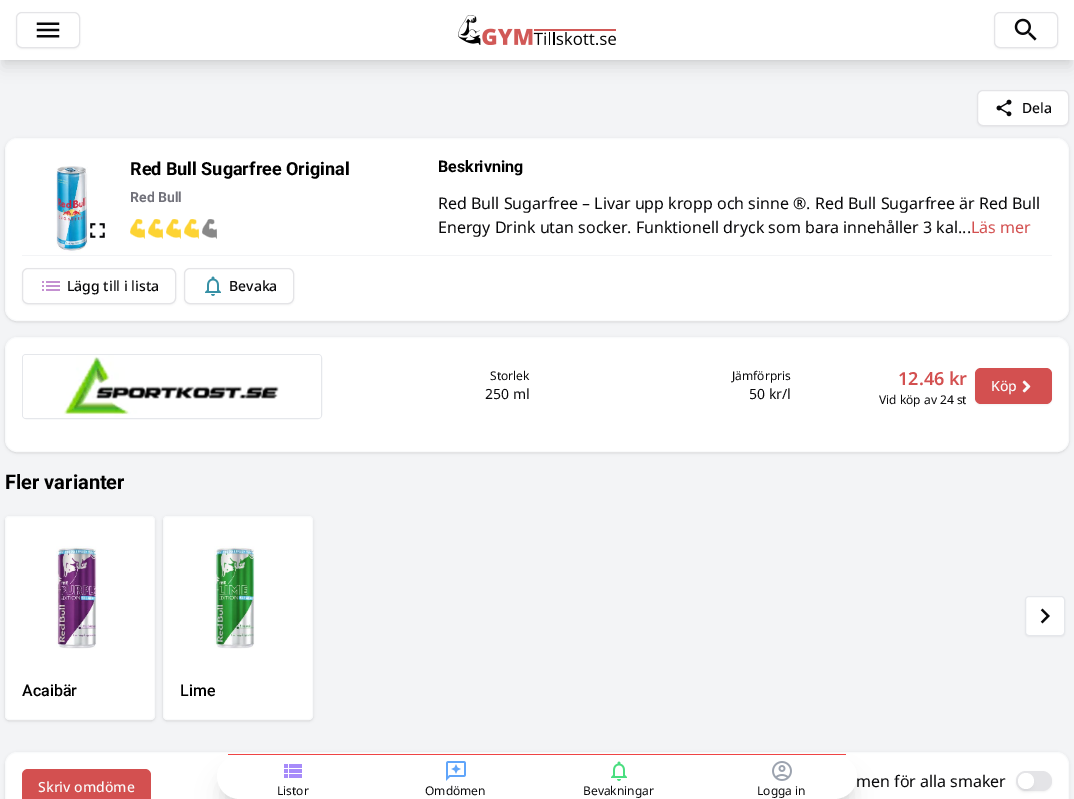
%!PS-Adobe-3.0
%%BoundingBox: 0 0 1074 799
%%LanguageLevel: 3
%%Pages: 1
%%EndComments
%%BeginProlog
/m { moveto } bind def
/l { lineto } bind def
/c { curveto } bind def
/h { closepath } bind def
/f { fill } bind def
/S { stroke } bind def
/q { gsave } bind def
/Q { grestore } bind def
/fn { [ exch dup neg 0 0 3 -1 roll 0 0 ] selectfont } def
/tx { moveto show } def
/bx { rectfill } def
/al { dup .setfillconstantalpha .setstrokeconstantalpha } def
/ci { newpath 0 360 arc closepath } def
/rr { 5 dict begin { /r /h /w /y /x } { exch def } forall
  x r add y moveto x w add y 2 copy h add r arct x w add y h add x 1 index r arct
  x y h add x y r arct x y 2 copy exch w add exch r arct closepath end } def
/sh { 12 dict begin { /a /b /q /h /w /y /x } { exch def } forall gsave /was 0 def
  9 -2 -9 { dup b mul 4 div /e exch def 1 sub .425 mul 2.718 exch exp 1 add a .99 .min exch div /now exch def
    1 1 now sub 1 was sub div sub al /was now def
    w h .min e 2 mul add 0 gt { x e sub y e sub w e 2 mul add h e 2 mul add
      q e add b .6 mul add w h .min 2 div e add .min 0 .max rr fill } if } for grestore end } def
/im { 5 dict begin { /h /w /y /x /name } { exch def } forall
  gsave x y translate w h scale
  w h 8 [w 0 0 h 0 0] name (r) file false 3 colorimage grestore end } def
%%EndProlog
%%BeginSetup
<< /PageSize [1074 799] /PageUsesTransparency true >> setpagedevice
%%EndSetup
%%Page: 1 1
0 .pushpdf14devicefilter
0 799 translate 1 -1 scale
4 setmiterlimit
0.953 0.957 0.965 setrgbcolor
0 0 1074 799 bx
0 setgray
4 8 1066 52 0 3 0.1 sh
977 91 92 36 6 1 0.05 sh
1 setgray
977.5 90.5 91 35 5.5 rr q f Q
0.894 0.894 0.906 setrgbcolor
S
0 setgray
3 13 1068 54 0 7.5 0.1 sh
1 setgray
0 0 1074 60 bx
0 setgray
16 13 64 36 6 1 0.05 sh
1 setgray
16.5 12.5 63 35 5.5 rr q f Q
0.894 0.894 0.906 setrgbcolor
S
(image0.raw) 36 22 24 16 im
(image1.raw) 458 15 158 30 im
0 setgray
994 13 64 36 6 1 0.05 sh
1 setgray
994.5 12.5 63 35 5.5 rr q f Q
0.894 0.894 0.906 setrgbcolor
S
(image2.raw) 1014 18 23 23 im
(image3.raw) 996 99 16 18 im
/NotoSans-Medium 14 fn
0.035 0.035 0.043 setrgbcolor
(Dela) 1022 113 tx
0 setgray
6 140 1062 181 11 1 0.1 sh
5 139 1064 183 12 1.5 0.1 sh
1 setgray
5.5 138.5 1063 182 11.5 rr q f Q
0.976 0.98 0.984 setrgbcolor
S
(image4.raw) 56 166 32 87 im
(image5.raw) 90 223 15 15 im
/Roboto-Bold 18 fn
0 setgray
(Red Bull Sugarfree Original) 130 175 tx
/Roboto-Bold 14 fn
0.443 0.443 0.478 setrgbcolor
(Red Bull) 130 202 tx
(image6.raw) 130 219 87 20 im
/Roboto-Bold 16 fn
0 setgray
(Beskrivning) 438 172 tx
/NotoSans-Regular 16 fn
0.035 0.035 0.043 setrgbcolor
(Red Bull Sugarfree – Livar upp kropp och sinne ®. Red Bull Sugarfree är Red Bull) 438 209 tx
(Energy Drink utan socker. Funktionell dryck som bara innehåller 3 kal...) 438 233 tx
0.827 0.314 0.314 setrgbcolor
(Läs mer) 971 233 tx
0.953 0.957 0.965 setrgbcolor
22 255 1030 1 bx
0 setgray
22 269 154 36 6 1 0.05 sh
1 setgray
22.5 268.5 153 35 5.5 rr q f Q
0.894 0.894 0.906 setrgbcolor
S
(image7.raw) 42 281 18 10 im
/NotoSans-Medium 14 fn
0.035 0.035 0.043 setrgbcolor
(Lägg till i lista) 67 291 tx
0 setgray
184 269 110 36 6 1 0.05 sh
1 setgray
184.5 268.5 109 35 5.5 rr q f Q
0.894 0.894 0.906 setrgbcolor
S
(image8.raw) 205 276 16 20 im
0.035 0.035 0.043 setrgbcolor
(Bevaka) 229 291 tx
0 setgray
6 339 1062 113 11 1 0.1 sh
5 338 1064 115 12 1.5 0.1 sh
1 setgray
5.5 337.5 1063 114 11.5 rr q f Q
0.976 0.98 0.984 setrgbcolor
S
0.898 0.906 0.922 setrgbcolor
22.5 354.5 299 64 3.5 rr S
(image9.raw) 23 355 298 63 im
/NotoSans-Regular 12 fn
0.035 0.035 0.043 setrgbcolor
(Storlek) 490 380 tx
/NotoSans-Regular 14 fn
(250 ml) 485 399 tx
/NotoSans-Regular 12 fn
(Jämförpris) 732 380 tx
/NotoSans-Regular 14 fn
(50 kr/l) 749 399 tx
/NotoSans-SemiBold 18 fn
0.827 0.314 0.314 setrgbcolor
(12.46 kr) 898 385 tx
/NotoSans-Regular 12 fn
0.035 0.035 0.043 setrgbcolor
(Vid köp av 24 st) 879 404 tx
0 setgray
975 369 77 36 6 1 0.05 sh
0.827 0.314 0.314 setrgbcolor
975 368 77 36 6 rr f
/NotoSans-Medium 14 fn
0.98 setgray
(Köp) 991 391 tx
(image10.raw) 1022 380 9 13 im
/Roboto-Bold 20 fn
0 setgray
(Fler varianter) 5 489 tx
1025 597 40 40 4 1 0.05 sh
1 setgray
1025.5 596.5 39 39 3.5 rr q f Q
0.898 0.906 0.922 setrgbcolor
S
(image11.raw) 1040 608 10 16 im
0 setgray
6 518 148 202 3 1 0.1 sh
5 517 150 204 4 1.5 0.1 sh
1 setgray
5.5 516.5 149 203 3.5 rr q f Q
0.976 0.98 0.984 setrgbcolor
S
(image12.raw) 56 546 41 103 im
/Roboto-Medium 16 fn
0 setgray
(Acaibär) 22 696 tx
164 518 148 202 3 1 0.1 sh
163 517 150 204 4 1.5 0.1 sh
1 setgray
163.5 516.5 149 203 3.5 rr q f Q
0.976 0.98 0.984 setrgbcolor
S
(image13.raw) 214 546 41 103 im
0 setgray
(Lime) 180 696 tx
5 753 1064 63 12 1.5 0.1 sh
1 setgray
5.5 752.5 1063 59 11.5 rr q f Q
0.976 0.98 0.984 setrgbcolor
S
0.827 0.314 0.314 setrgbcolor
22 769 129 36 6 rr f
/NotoSans-Medium 14 fn
0.98 setgray
(Skriv omdöme) 38 792 tx
/NotoSans-Regular 16 fn
0.035 0.035 0.043 setrgbcolor
(men för alla smaker) 856 787 tx
0 setgray
1016 772 36 20 10 1 0.05 sh
0.894 0.894 0.906 setrgbcolor
1016 771 36 20 10 rr f
0 setgray
1022 781 8 8 4 3 0.1 sh
1 setgray
1026 781 8 ci f
0 setgray
223 768 628 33 16.5 5 0.1 sh
222 779 630 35 17.5 12.5 0.1 sh
1 setgray
240 755 m 834 755 l 847 755 857 765 857 776 c 857 789 847 799 834 799 c 240 799 l 227 799 217 789 217 776 c 217 765 227 755 240 755 c h f
0.937 0.267 0.267 setrgbcolor
228 754 618 1 bx
(image14.raw) 284 764 18 14 im
/NotoSans-Regular 12 fn
0.035 0.035 0.043 setrgbcolor
(Listor) 277 795 tx
(image15.raw) 446 761 20 20 im
(Omdömen) 425 795 tx
(image16.raw) 611 761 16 20 im
(Bevakningar) 583 795 tx
(image17.raw) 772 761 20 20 im
(Logga in) 757 795 tx
.poppdf14devicefilter showpage
%%EOF
